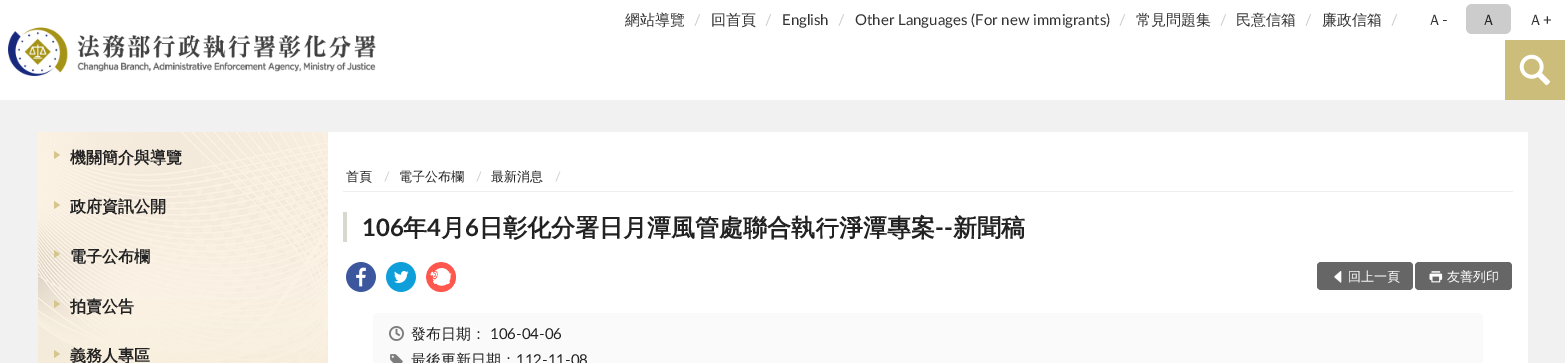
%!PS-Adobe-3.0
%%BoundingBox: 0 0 1565 363
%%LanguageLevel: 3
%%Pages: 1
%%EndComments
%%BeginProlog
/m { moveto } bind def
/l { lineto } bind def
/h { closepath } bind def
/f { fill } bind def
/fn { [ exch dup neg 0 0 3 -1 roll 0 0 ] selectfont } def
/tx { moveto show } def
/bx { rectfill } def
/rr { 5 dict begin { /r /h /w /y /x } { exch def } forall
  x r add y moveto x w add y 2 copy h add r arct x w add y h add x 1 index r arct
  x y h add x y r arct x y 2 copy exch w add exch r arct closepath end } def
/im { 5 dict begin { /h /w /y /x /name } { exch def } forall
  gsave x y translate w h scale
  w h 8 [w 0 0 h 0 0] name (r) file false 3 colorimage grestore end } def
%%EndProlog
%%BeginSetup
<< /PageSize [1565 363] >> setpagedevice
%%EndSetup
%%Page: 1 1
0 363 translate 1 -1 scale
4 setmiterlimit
1 setgray
0 0 1565 363 bx
/WenQuanYiZenHei-Medium 15 fn
0.2 setgray
(網站導覽) 625 25 tx
/Lato-Regular 15 fn
0.8 setgray
(/) 694 25 tx
/WenQuanYiZenHei-Medium 15 fn
0.2 setgray
(回首頁) 711 25 tx
/Lato-Regular 15 fn
0.8 setgray
(/) 765 25 tx
0.2 setgray
(English) 782 25 tx
0.8 setgray
(/) 838 25 tx
0.2 setgray
(Other Languages \(For new immigrants\)) 855 25 tx
0.8 setgray
(/) 1119 25 tx
/WenQuanYiZenHei-Medium 15 fn
0.2 setgray
(常見問題集) 1136 25 tx
/Lato-Regular 15 fn
0.8 setgray
(/) 1220 25 tx
/WenQuanYiZenHei-Medium 15 fn
0.2 setgray
(民意信箱) 1236 25 tx
/Lato-Regular 15 fn
0.8 setgray
(/) 1305 25 tx
/WenQuanYiZenHei-Medium 15 fn
0.2 setgray
(廉政信箱) 1322 25 tx
/Lato-Regular 15 fn
0.8 setgray
(/) 1391 25 tx
/WenQuanYiZenHei-Medium 15 fn
0.2 setgray
(Ａ) 1427 25 tx
/Lato-Regular 15 fn
(-) 1442 25 tx
0.8 setgray
1466 4 45 30 6 rr f
/WenQuanYiZenHei-Medium 15 fn
0.133 setgray
(Ａ) 1481 25 tx
0.2 setgray
(Ａ) 1528 25 tx
/Lato-Regular 15 fn
(+) 1543 25 tx
(image0.raw) 8 27 368 49 im
0.804 0.741 0.478 setrgbcolor
1505 40 60 60 bx
(image1.raw) 1519 54 31 32 im
0.945 setgray
0 100 1565 263 bx
(image2.raw) 38 132 290 231 im
0.831 0.776 0.553 setrgbcolor
54 159 m 54 151 l 60 155 l h f
/WenQuanYiZenHei-Bold 16 fn
0.133 setgray
(機關簡介與導覽) 70 163 tx
0.831 0.776 0.553 setrgbcolor
54 209 m 54 201 l 60 205 l h f
0.133 setgray
(政府資訊公開) 70 212 tx
0.831 0.776 0.553 setrgbcolor
54 258 m 54 250 l 60 254 l h f
0.133 setgray
(電子公布欄) 70 262 tx
0.831 0.776 0.553 setrgbcolor
54 308 m 54 300 l 60 304 l h f
0.133 setgray
(拍賣公告) 70 312 tx
0.831 0.776 0.553 setrgbcolor
54 358 m 54 350 l 60 354 l h f
0.133 setgray
(義務人專區) 70 361 tx
1 setgray
328 132 1200 231 bx
0.933 setgray
343 191 1170 1 bx
/WenQuanYiZenHei-Medium 13 fn
0.133 setgray
(首頁) 346 181 tx
/Lato-Regular 13 fn
0.8 setgray
(/) 384 181 tx
/WenQuanYiZenHei-Medium 13 fn
0.133 setgray
(電子公布欄) 399 181 tx
/Lato-Regular 13 fn
0.8 setgray
(/) 476 181 tx
/WenQuanYiZenHei-Medium 13 fn
0.133 setgray
(最新消息) 491 181 tx
/Lato-Regular 13 fn
0.8 setgray
(/) 555 181 tx
0.843 0.851 0.808 setrgbcolor
343 212 4 30 bx
/Lato-Bold 24 fn
0.133 setgray
(106) 362 236 tx
/WenQuanYiZenHei-Bold 24 fn
(年) 403 236 tx
/Lato-Bold 24 fn
(4) 427 236 tx
/WenQuanYiZenHei-Bold 24 fn
(月) 441 236 tx
/Lato-Bold 24 fn
(6) 465 236 tx
/WenQuanYiZenHei-Bold 24 fn
(日彰化分署日月潭風管處聯合執行淨潭專案) 479 236 tx
/Lato-Bold 24 fn
(--) 935 236 tx
/WenQuanYiZenHei-Bold 24 fn
(新聞稿) 953 236 tx
(image3.raw) 346 262 30 30 im
(image4.raw) 386 262 30 30 im
(image5.raw) 426 262 30 30 im
0.4 setgray
1317 262 96 28 4 rr f
(image6.raw) 1334 271 8 12 im
/WenQuanYiZenHei-Medium 13 fn
1 setgray
(回上一頁) 1348 281 tx
0.4 setgray
1415 262 97 28 4 rr f
(image7.raw) 1429 271 14 12 im
1 setgray
(友善列印) 1447 281 tx
0.98 setgray
373 313 1110 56 6 rr f
(image8.raw) 389 326 15 15 im
/WenQuanYiZenHei-Medium 15 fn
0.133 setgray
(發布日期：) 411 339 tx
/Lato-Regular 15 fn
(106-04-06) 490 339 tx
(image9.raw) 390 354 13 9 im
/WenQuanYiZenHei-Medium 15 fn
(最後更新日期：) 411 365 tx
/Lato-Regular 15 fn
(112-11-08) 516 365 tx
showpage
%%EOF
